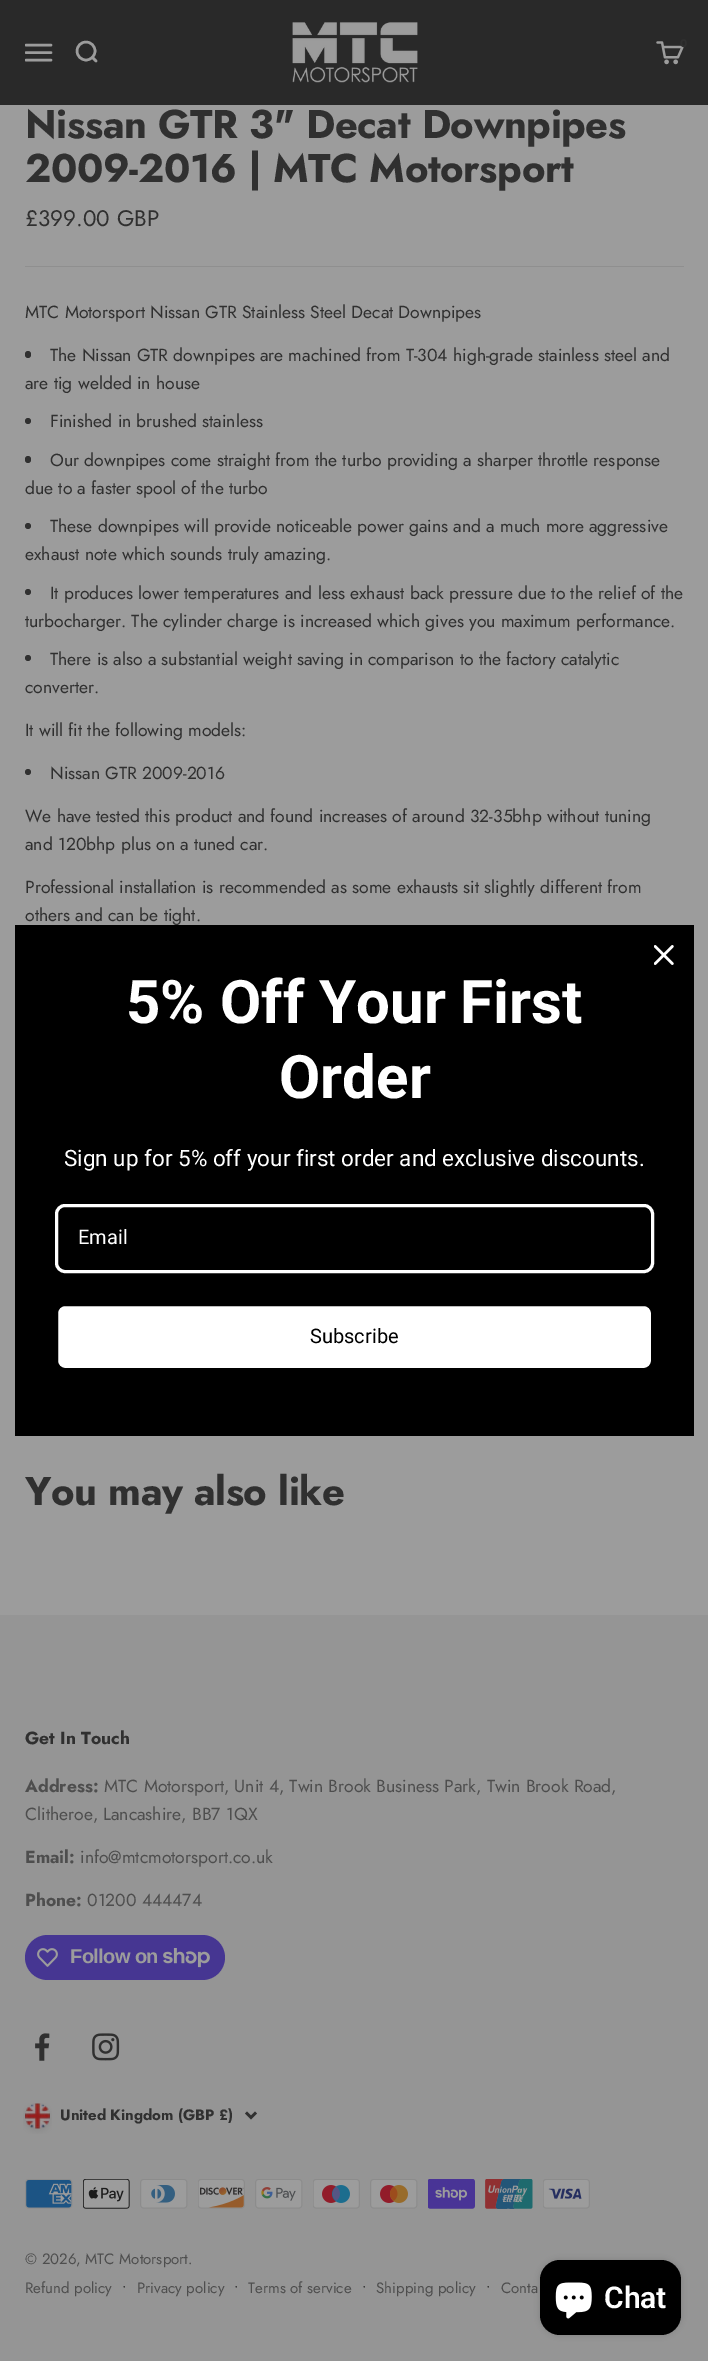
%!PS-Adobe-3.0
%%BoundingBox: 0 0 708 2361
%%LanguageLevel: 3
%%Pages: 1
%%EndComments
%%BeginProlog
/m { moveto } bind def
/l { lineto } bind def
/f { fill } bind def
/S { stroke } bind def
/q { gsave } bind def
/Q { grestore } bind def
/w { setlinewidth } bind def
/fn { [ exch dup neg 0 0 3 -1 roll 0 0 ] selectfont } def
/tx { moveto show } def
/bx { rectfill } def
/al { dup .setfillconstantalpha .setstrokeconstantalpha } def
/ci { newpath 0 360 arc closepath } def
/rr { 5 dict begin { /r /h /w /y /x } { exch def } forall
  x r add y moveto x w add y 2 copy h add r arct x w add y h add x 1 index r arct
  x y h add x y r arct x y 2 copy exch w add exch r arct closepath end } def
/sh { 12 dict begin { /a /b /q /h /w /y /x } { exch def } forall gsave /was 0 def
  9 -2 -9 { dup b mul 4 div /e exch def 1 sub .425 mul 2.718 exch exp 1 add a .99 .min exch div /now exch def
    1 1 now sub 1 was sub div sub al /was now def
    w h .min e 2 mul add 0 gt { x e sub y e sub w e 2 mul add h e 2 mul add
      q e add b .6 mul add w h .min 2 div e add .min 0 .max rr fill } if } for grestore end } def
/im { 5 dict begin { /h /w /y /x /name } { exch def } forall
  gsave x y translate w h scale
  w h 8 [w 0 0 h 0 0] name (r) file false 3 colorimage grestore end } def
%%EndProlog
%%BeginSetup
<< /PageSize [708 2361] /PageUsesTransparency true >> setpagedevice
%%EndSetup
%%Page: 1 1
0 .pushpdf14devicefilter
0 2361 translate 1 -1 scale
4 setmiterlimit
0.612 setgray
0 0 708 2361 bx
0.161 setgray
0 0 708 105 bx
q
25 39 28 27 rectclip
0.612 setgray
2.5 w
1 setlinecap
26 45 m 51 45 l 26 52.5 m 51 52.5 l 26 60 m 51 60 l S
Q
0.612 setgray
2.5 w
86 51 9 ci S
1 setlinecap
1 setlinejoin
92.5 57.5 m 96 61 l S
(image0.raw) 292 22 126 61 im
(image1.raw) 656 41 28 24 im
/Jost-Bold 11 fn
0.188 setgray
(0) 680 47 tx
/Jost-Bold 40 fn
25 138 m -0.4 0 (Nissan GTR 3" Decat Downpipes) ashow
25 182 m -0.4 0 (2009-2016 | MTC Motorsport) ashow
/Jost-Regular 22.5 fn
(£399.00 GBP) 25 226 tx
0.561 setgray
25 266 659 1 bx
/Jost-Regular 17.5 fn
0.188 setgray
(MTC Motorsport Nissan GTR Stainless Steel Decat Downpipes) 25 318 tx
25 351 6 7 3 rr f
(The Nissan GTR downpipes are machined from T-304 high-grade stainless steel and) 50 361 tx
(are tig welded in house) 25 389 tx
28 421 3 ci f
(Finished in brushed stainless) 50 427 tx
25 456 6 7 3 rr f
(Our downpipes come straight from the turbo providing a sharper throttle response) 50 466 tx
(due to a faster spool of the turbo) 25 494 tx
28 526 3 ci f
(These downpipes will provide noticeable power gains and a much more aggressive) 50 532 tx
(exhaust note which sounds truly amazing.) 25 560 tx
28 592 3 ci f
(It produces lower temperatures and less exhaust back pressure due to the relief of the) 50 599 tx
(turbocharger. The cylinder charge is increased which gives you maximum performance.) 25 627 tx
28 658 3 ci f
(There is also a substantial weight saving in comparison to the factory catalytic) 50 665 tx
(converter.) 25 693 tx
(It will fit the following models:) 25 736 tx
28 772 3 ci f
(Nissan GTR 2009-2016) 50 779 tx
(We have tested this product and found increases of around 32-35bhp without tuning) 25 822 tx
(and 120bhp plus on a tuned car.) 25 850 tx
(Professional installation is recommended as some exhausts sit slightly different from) 25 893 tx
(others and can be tight.) 25 921 tx
/Jost-Bold 40 fn
25 1505 m -0.4 0 (You may also like) ashow
0.584 setgray
0 1615 708 746 bx
/Jost-Bold 17.5 fn
0.188 setgray
(Get In Touch) 25 1744 tx
0.306 setgray
(Address:) 25 1792 tx
/Jost-Regular 17.5 fn
(MTC Motorsport, Unit 4, Twin Brook Business Park, Twin Brook Road,) 104 1792 tx
(Clitheroe, Lancashire, BB7 1QX) 25 1820 tx
/Jost-Bold 17.5 fn
(Email:) 25 1863 tx
/Jost-Regular 17.5 fn
(info@mtcmotorsport.co.uk) 80 1863 tx
/Jost-Bold 17.5 fn
(Phone:) 25 1906 tx
/Jost-Regular 17.5 fn
(01200 444474) 87 1906 tx
0.275 0.212 0.573 setrgbcolor
25 1935 200 45 22.5 rr f
(image2.raw) 37 1948 21 19 im
/LiberationSans-Bold 20 fn
0.612 setgray
70 1963 m -0.6 0 (Follow on) ashow
(image3.raw) 163 1948 47 20 im
(image4.raw) 35 2033 15 28 im
(image5.raw) 92 2033 28 28 im
(image6.raw) 23 2103 29 31 im
/Jost-Bold 15 fn
0.188 setgray
(United Kingdom \(GBP £\)) 60 2120 tx
0 setlinecap
0 setlinejoin
246 2112.5 m 251 2117.5 l 256 2112.5 l S
(image7.raw) 25 2179 48 30 im
(image8.raw) 83 2179 47 30 im
(image9.raw) 140 2179 48 30 im
(image10.raw) 198 2179 47 30 im
(image11.raw) 255 2179 48 30 im
(image12.raw) 313 2179 47 30 im
(image13.raw) 370 2179 48 30 im
(image14.raw) 428 2179 47 30 im
(image15.raw) 485 2179 48 30 im
(image16.raw) 543 2179 47 30 im
/Jost-Regular 15 fn
0.306 setgray
(© 2026, MTC Motorsport.) 25 2264 tx
(Refund policy) 25 2293 tx
0.188 setgray
(•) 122 2293 tx
0.306 setgray
(Privacy policy) 137 2293 tx
0.188 setgray
(•) 234 2293 tx
0.306 setgray
(Terms of service) 248 2293 tx
0.188 setgray
(•) 362 2293 tx
0.306 setgray
(Shipping policy) 376 2293 tx
0.188 setgray
(•) 486 2293 tx
0.306 setgray
(Conta) 501 2293 tx
0 setgray
15 925 679 511 bx
(image17.raw) 654 945 20 20 im
/Roboto-Bold 60 fn
1 setgray
(5% Off Your First) 126 1023 tx
(Order) 279 1098 tx
/Roboto-Regular 22.5 fn
(Sign up for 5% off your first order and exclusive discounts.) 64 1166 tx
3 w
56.5 1205.5 596 66 8.5 rr S
/Roboto-Regular 20 fn
(Email) 78 1244 tx
56.5 1304.5 596 65 8.5 rr q f Q
0 setgray
S
(Subscribe) 310 1343 tx
540 2260 141 75 20 3 0.15 sh
540 2260 141 75 20 rr f
(image18.raw) 555 2282 37 37 im
/Roboto-SemiBold 30 fn
1 setgray
(Chat) 604 2308 tx
.poppdf14devicefilter showpage
%%EOF
